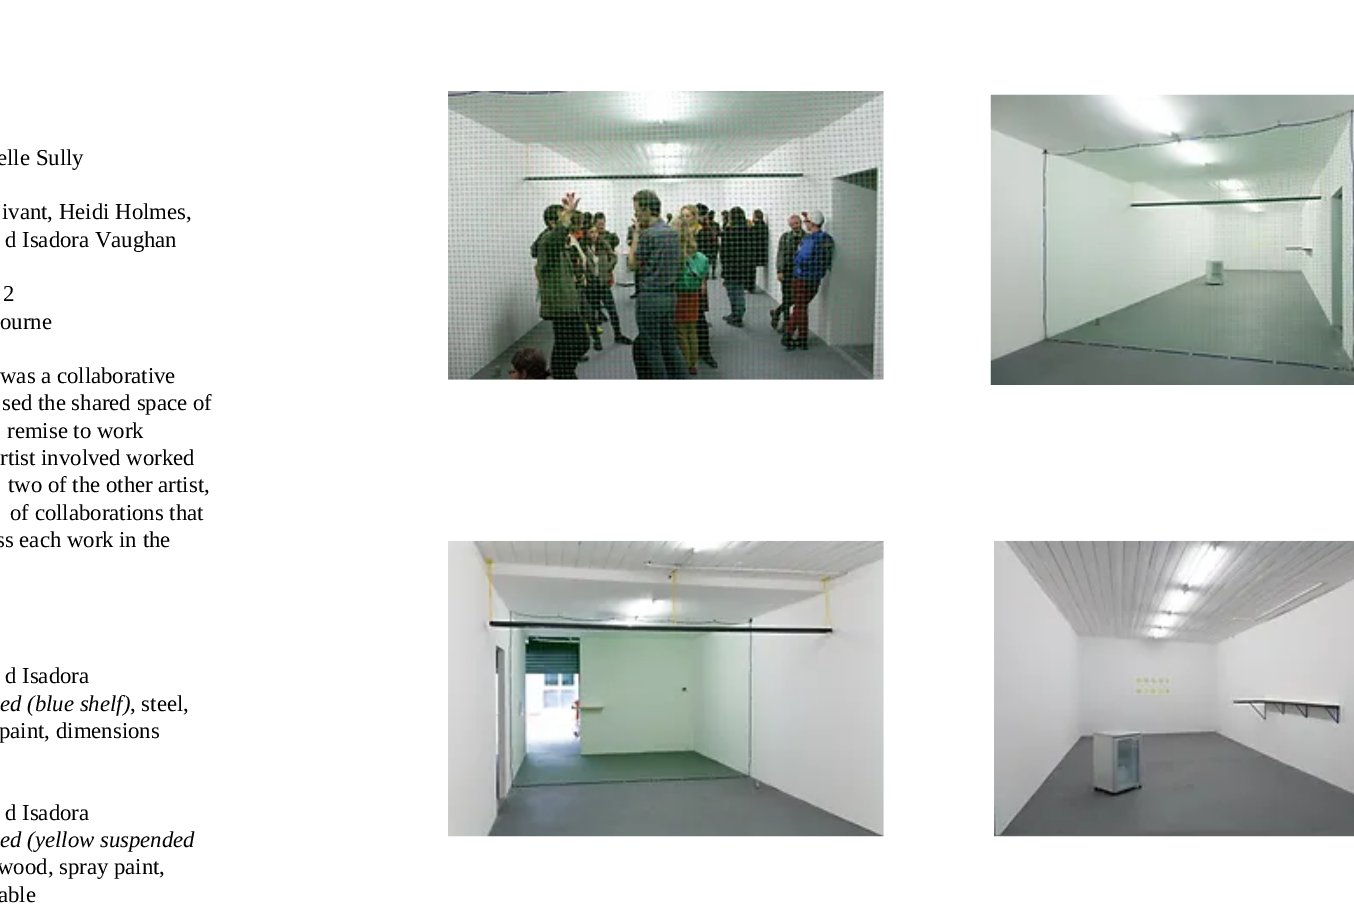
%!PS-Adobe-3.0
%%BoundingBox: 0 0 1354 916
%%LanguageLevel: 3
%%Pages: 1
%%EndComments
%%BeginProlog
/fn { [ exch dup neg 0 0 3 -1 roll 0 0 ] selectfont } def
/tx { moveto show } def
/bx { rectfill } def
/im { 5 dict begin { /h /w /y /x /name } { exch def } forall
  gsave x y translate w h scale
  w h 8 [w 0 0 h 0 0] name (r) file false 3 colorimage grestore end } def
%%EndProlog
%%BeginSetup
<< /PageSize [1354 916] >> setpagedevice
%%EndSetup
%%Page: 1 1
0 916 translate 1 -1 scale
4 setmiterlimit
1 setgray
0 0 1354 916 bx
/LiberationSerif-Regular 22.75 fn
0 setgray
(elle Sully) -3 165 tx
(ivant, Heidi Holmes,) 2 219 tx
(d Isadora Vaughan) 5 247 tx
(2) 3 301 tx
(ourne) 0 329 tx
(was a collaborative) 0 383 tx
(sed the shared space of) 2 410 tx
(remise to work) 7 438 tx
(rtist involved worked) 0 465 tx
(two of the other artist,) 8 492 tx
(of collaborations that) 10 520 tx
(ss each work in the) -4 547 tx
(d Isadora) 5 683 tx
/LiberationSerif-Italic 22.75 fn
(ed \(blue shelf\)) 0 711 tx
/LiberationSerif-Regular 22.75 fn
(, steel,) 130 711 tx
(paint, dimensions) -1 738 tx
(d Isadora) 5 820 tx
/LiberationSerif-Italic 22.75 fn
(ed \(yellow suspended) 0 847 tx
/LiberationSerif-Regular 22.75 fn
(wood, spray paint,) -3 874 tx
(able) -2 902 tx
(image0.raw) 448 91 436 289 im
(image1.raw) 990 94 364 291 im
(image2.raw) 448 540 436 297 im
(image3.raw) 994 540 360 297 im
showpage
%%EOF
